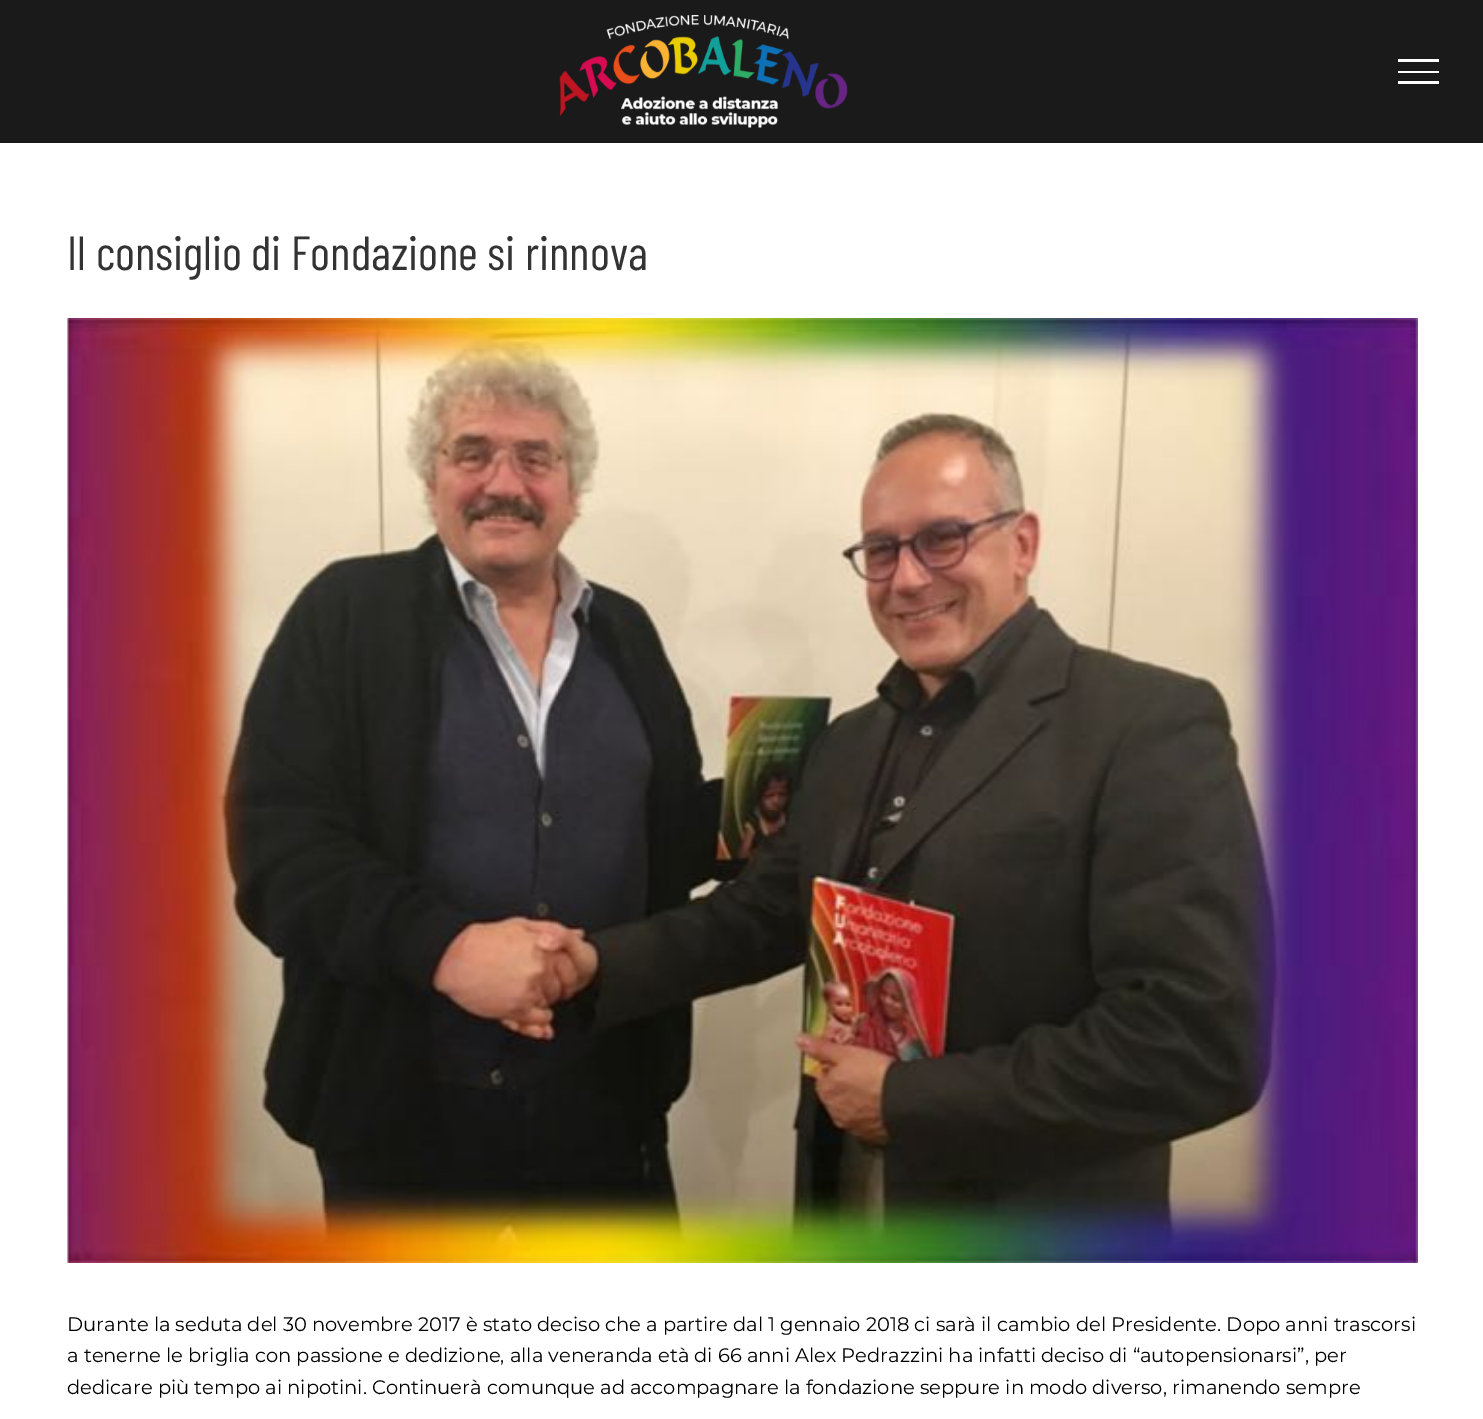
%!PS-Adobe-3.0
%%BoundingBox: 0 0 1483 1419
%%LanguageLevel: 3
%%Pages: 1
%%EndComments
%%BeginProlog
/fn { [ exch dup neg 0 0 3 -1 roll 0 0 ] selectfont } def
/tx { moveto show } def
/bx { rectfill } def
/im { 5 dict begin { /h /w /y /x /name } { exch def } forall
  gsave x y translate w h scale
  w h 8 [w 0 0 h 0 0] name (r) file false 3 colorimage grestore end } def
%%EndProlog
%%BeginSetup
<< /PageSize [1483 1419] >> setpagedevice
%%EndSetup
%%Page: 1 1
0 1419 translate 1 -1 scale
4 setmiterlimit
1 setgray
0 0 1483 1419 bx
0.102 setgray
0 0 1483 143 bx
(image0.raw) 559 15 289 113 im
1 setgray
1398 59 41 3 bx
1398 71 41 2 bx
1398 81 41 3 bx
/BarlowCondensed-Regular 48 fn
0.2 setgray
(Il consiglio di Fondazione si rinnova) 67 270 tx
(image1.raw) 67 318 1351 945 im
/Montserrat-Regular 19.5 fn
0 setgray
(Durante la seduta del 30 novembre 2017 è stato deciso che a partire dal 1 gennaio 2018 ci sarà il cambio del Presidente. Dopo anni trascorsi) 67 1331 tx
(a tenerne le briglia con passione e dedizione, alla veneranda età di 66 anni Alex Pedrazzini ha infatti deciso di “autopensionarsi”, per) 67 1362 tx
(dedicare più tempo ai nipotini. Continuerà comunque ad accompagnare la fondazione seppure in modo diverso, rimanendo sempre) 67 1394 tx
showpage
%%EOF
